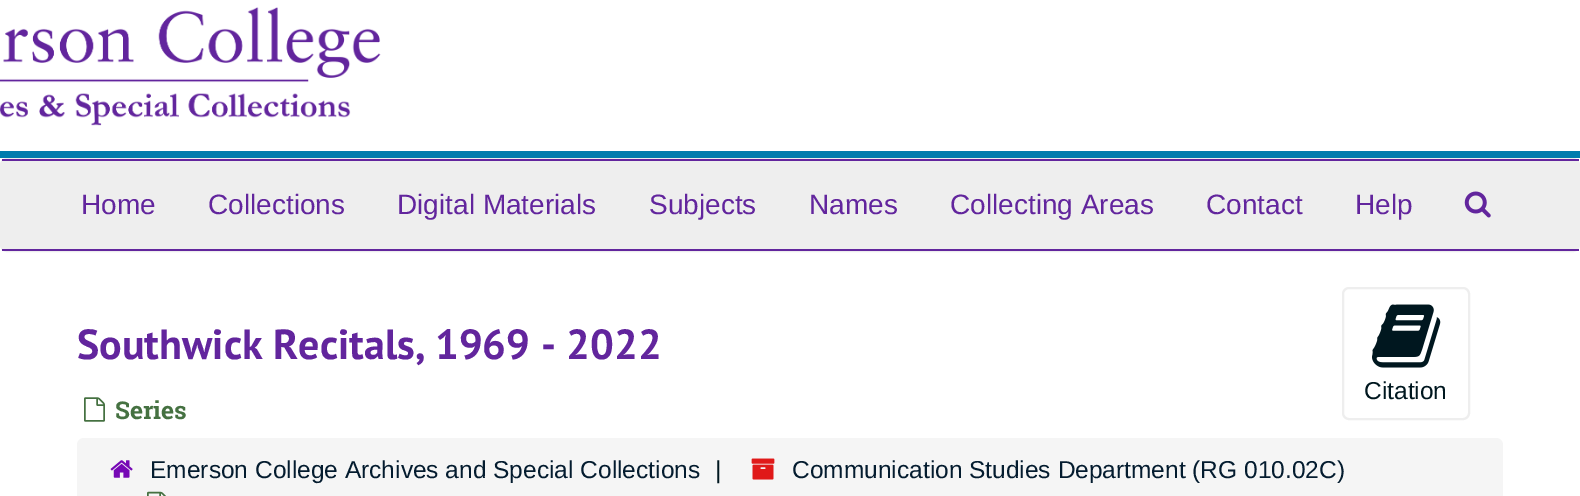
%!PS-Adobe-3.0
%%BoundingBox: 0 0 1580 496
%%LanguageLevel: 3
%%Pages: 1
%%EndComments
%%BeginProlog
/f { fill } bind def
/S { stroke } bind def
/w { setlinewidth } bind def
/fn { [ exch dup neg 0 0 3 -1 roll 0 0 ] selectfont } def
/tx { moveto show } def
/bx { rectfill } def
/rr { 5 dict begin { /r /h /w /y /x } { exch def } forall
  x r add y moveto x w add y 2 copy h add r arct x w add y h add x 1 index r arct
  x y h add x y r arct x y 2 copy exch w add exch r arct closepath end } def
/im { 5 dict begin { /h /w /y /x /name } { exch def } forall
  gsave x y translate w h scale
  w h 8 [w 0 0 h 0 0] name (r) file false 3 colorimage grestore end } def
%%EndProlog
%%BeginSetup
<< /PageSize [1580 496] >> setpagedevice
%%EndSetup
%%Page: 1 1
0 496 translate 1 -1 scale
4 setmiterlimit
1 setgray
0 0 1580 496 bx
0 0.486 0.678 setrgbcolor
0 151 1580 7 bx
(image0.raw) 0 7 381 119 im
0.933 setgray
2 w
1 159 1578 92 6 rr S
2 161 1576 88 bx
0.384 0.145 0.616 setrgbcolor
2 159 1577 2 bx
2 249 1577 2 bx
/LiberationSans-Regular 28 fn
(Home) 81 214 tx
(Collections) 208 214 tx
(Digital Materials) 397 214 tx
(Subjects) 649 214 tx
(Names) 809 214 tx
(Collecting Areas) 950 214 tx
(Contact) 1206 214 tx
(Help) 1355 214 tx
(image1.raw) 1464 191 27 27 im
/PTSans-Bold 42 fn
(Southwick Recitals, 1969 - 2022) 77 359 tx
(image2.raw) 84 397 21 25 im
/RobotoSlab-Bold 24.5 fn
0.271 0.443 0.255 setrgbcolor
(Series) 115 419 tx
0.933 setgray
1343 288 126 131 6 rr S
(image3.raw) 1372 304 69 64 im
/LiberationSans-Regular 24.5 fn
0 0.09 0.122 setrgbcolor
(Citation) 1364 399 tx
0.961 setgray
77 438 1426 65 7 rr f
(image4.raw) 110 460 23 18 im
0.016 0.11 0.184 setrgbcolor
(Emerson College Archives and Special Collections) 150 478 tx
0 0.09 0.122 setrgbcolor
(|) 715 478 tx
(image5.raw) 751 458 24 22 im
0.016 0.11 0.184 setrgbcolor
(Communication Studies Department \(RG 010.02C\)) 792 478 tx
(image6.raw) 147 491 19 5 im
showpage
%%EOF
